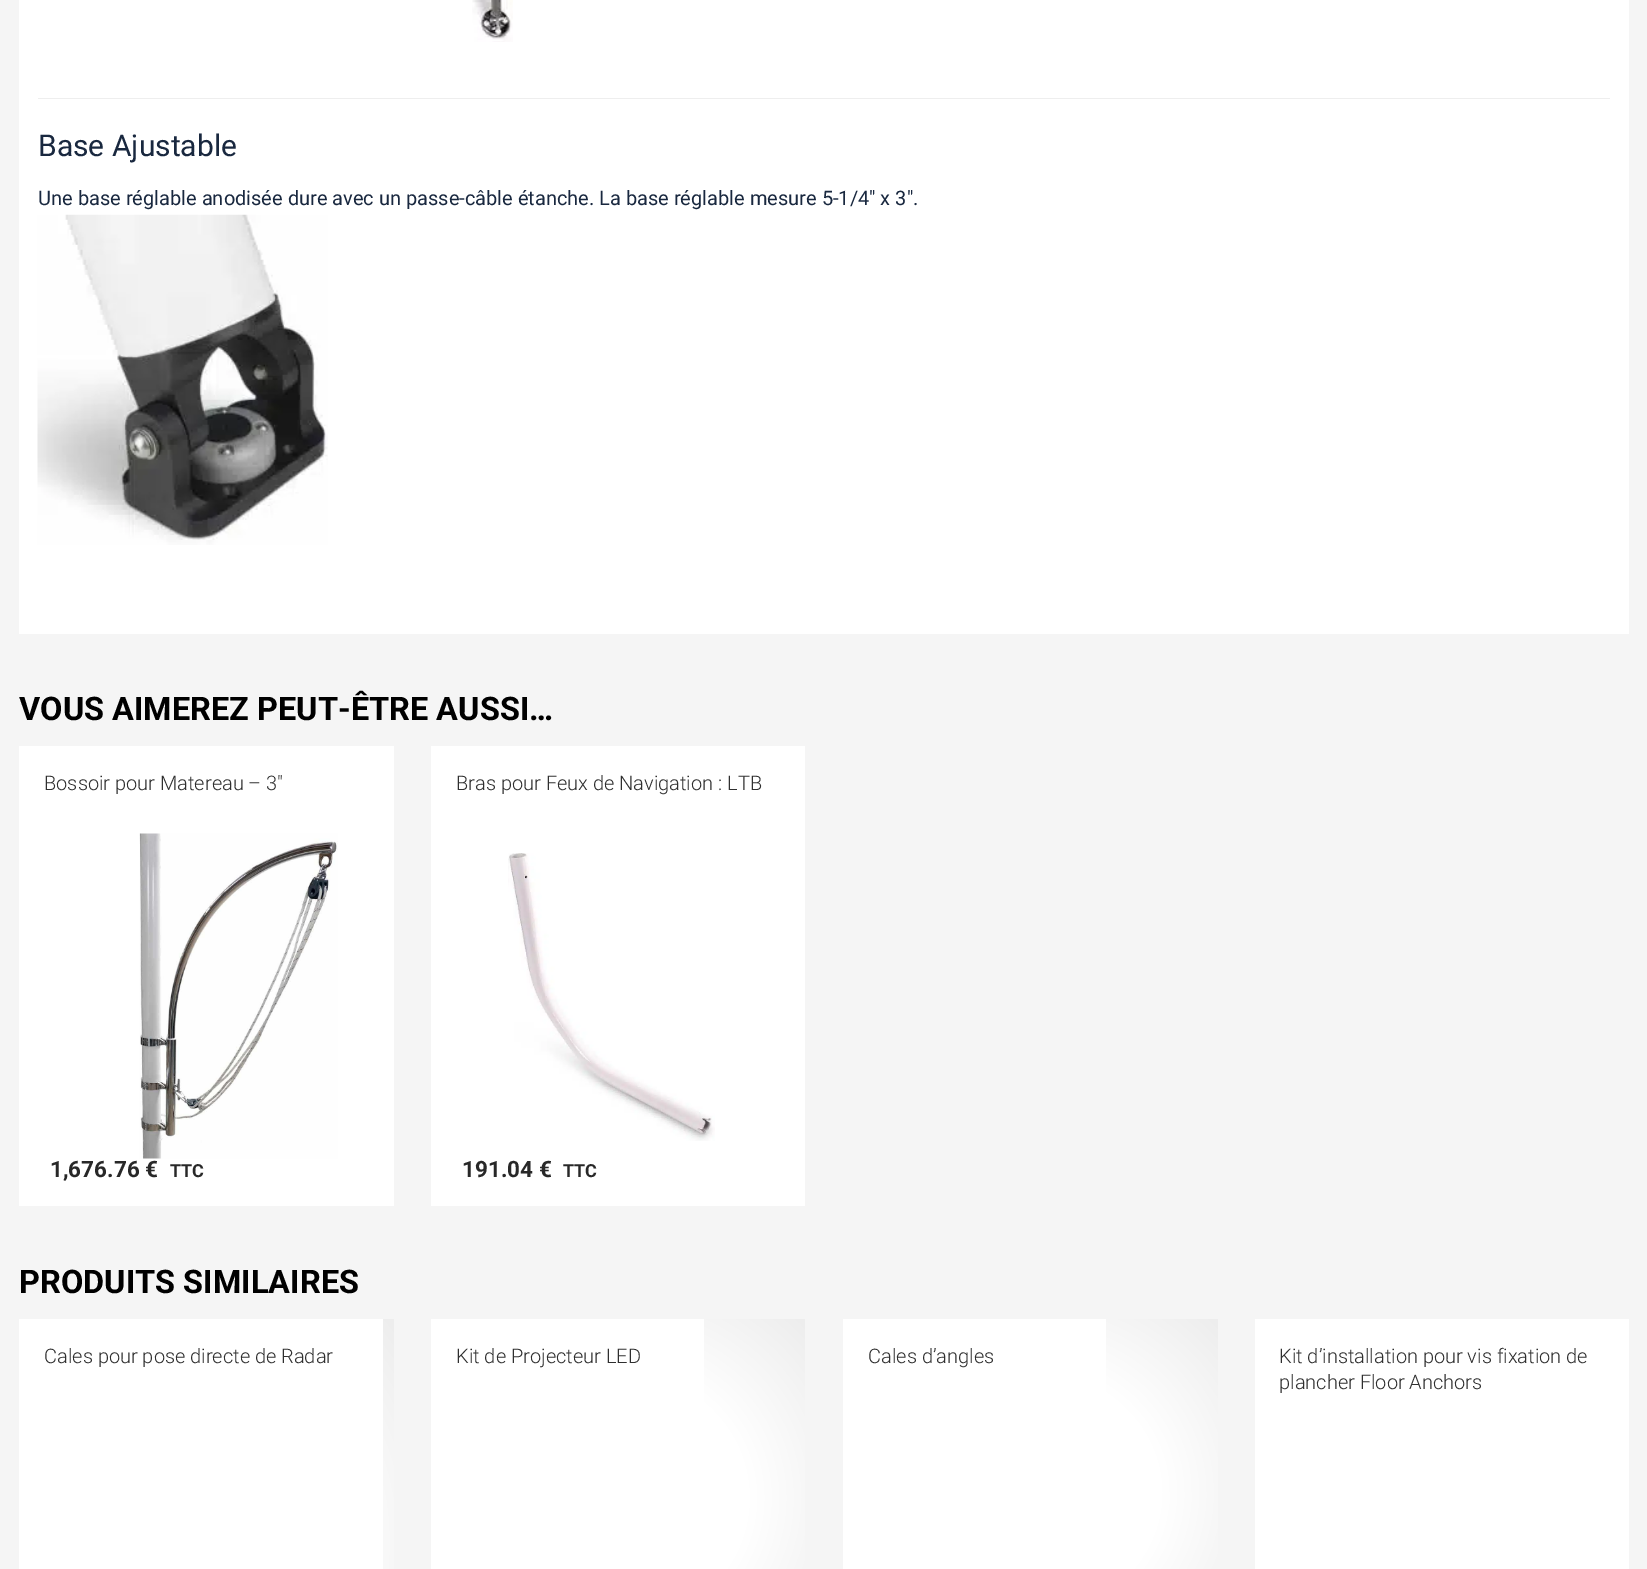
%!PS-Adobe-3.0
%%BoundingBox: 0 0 1647 1569
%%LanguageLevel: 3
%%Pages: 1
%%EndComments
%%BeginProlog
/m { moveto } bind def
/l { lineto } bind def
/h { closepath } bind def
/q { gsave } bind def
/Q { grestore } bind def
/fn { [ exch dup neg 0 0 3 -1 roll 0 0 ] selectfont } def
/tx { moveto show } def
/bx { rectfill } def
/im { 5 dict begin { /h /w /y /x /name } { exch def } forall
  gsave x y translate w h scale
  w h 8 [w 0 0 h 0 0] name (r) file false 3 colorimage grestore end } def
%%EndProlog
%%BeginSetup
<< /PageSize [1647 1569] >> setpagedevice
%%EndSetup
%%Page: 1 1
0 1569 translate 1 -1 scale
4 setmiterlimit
0.961 setgray
0 0 1647 1569 bx
1 setgray
19 0 1610 634 bx
(image0.raw) 472 0 41 42 im
0.933 setgray
38 98 1572 1 bx
/Roboto-Regular 30 fn
0.098 0.157 0.247 setrgbcolor
(Base Ajustable) 38 156 tx
/Roboto-Regular 20 fn
(Une base réglable anodisée dure avec un passe-câble étanche. La base réglable mesure 5-1/4″ x 3″.) 38 205 tx
(image1.raw) 37 214 291 331 im
/Roboto-Bold 32.5 fn
0 setgray
(VOUS AIMEREZ PEUT-ÊTRE AUSSI…) 19 720 tx
1 setgray
19 746 375 460 bx
/Roboto-Light 20 fn
0.184 setgray
(Bossoir pour Matereau – 3″) 44 790 tx
(image2.raw) 139 833 199 326 im
/Roboto-Bold 22.5 fn
0.157 setgray
(1,676.76 €) 50 1177 tx
/Roboto-Bold 18 fn
(TTC) 170 1177 tx
1 setgray
431 746 374 460 bx
/Roboto-Light 20 fn
0.184 setgray
(Bras pour Feux de Navigation : LTB) 456 790 tx
(image3.raw) 508 853 207 288 im
/Roboto-Bold 22.5 fn
0.157 setgray
(191.04 €) 462 1177 tx
/Roboto-Bold 18 fn
(TTC) 563 1177 tx
/Roboto-Bold 32.5 fn
0 setgray
(PRODUITS SIMILAIRES) 19 1293 tx
q 383 1319 m 394 1319 l 394 1569 l 383 1569 l h clip newpath 206 1543 translate 265 317 scale
<< /ShadingType 3 /ColorSpace /DeviceRGB /Coords [0 0 0 0 0 1] /Extend [true true] /Function << /FunctionType 3 /Domain [0 1] /Functions [<< /FunctionType 2 /Domain [0 1] /C0 [1 1 1] /C1 [1 1 1] /N 1 >> << /FunctionType 2 /Domain [0 1] /C0 [1 1 1] /C1 [0.929 0.929 0.929] /N 1 >>] /Bounds [0.5] /Encode [0 1 0 1] >> >> shfill Q
1 setgray
19 1319 364 250 bx
/Roboto-Light 20 fn
0.184 setgray
(Cales pour pose directe de Radar) 44 1363 tx
q 704 1319 m 805 1319 l 805 1569 l 704 1569 l h clip newpath 618 1498 translate 264 254 scale
<< /ShadingType 3 /ColorSpace /DeviceRGB /Coords [0 0 0 0 0 1] /Extend [true true] /Function << /FunctionType 3 /Domain [0 1] /Functions [<< /FunctionType 2 /Domain [0 1] /C0 [1 1 1] /C1 [1 1 1] /N 1 >> << /FunctionType 2 /Domain [0 1] /C0 [1 1 1] /C1 [0.929 0.929 0.929] /N 1 >>] /Bounds [0.5] /Encode [0 1 0 1] >> >> shfill Q
1 setgray
431 1319 273 250 bx
0.184 setgray
(Kit de Projecteur LED) 456 1363 tx
q 1106 1319 m 1218 1319 l 1218 1569 l 1106 1569 l h clip newpath 1030 1493 translate 265 247 scale
<< /ShadingType 3 /ColorSpace /DeviceRGB /Coords [0 0 0 0 0 1] /Extend [true true] /Function << /FunctionType 3 /Domain [0 1] /Functions [<< /FunctionType 2 /Domain [0 1] /C0 [1 1 1] /C1 [1 1 1] /N 1 >> << /FunctionType 2 /Domain [0 1] /C0 [1 1 1] /C1 [0.929 0.929 0.929] /N 1 >>] /Bounds [0.5] /Encode [0 1 0 1] >> >> shfill Q
1 setgray
843 1319 263 250 bx
0.184 setgray
(Cales d’angles) 868 1363 tx
1 setgray
1255 1319 374 250 bx
0.184 setgray
(Kit d’installation pour vis fixation de) 1279 1363 tx
(plancher Floor Anchors) 1279 1389 tx
showpage
%%EOF
